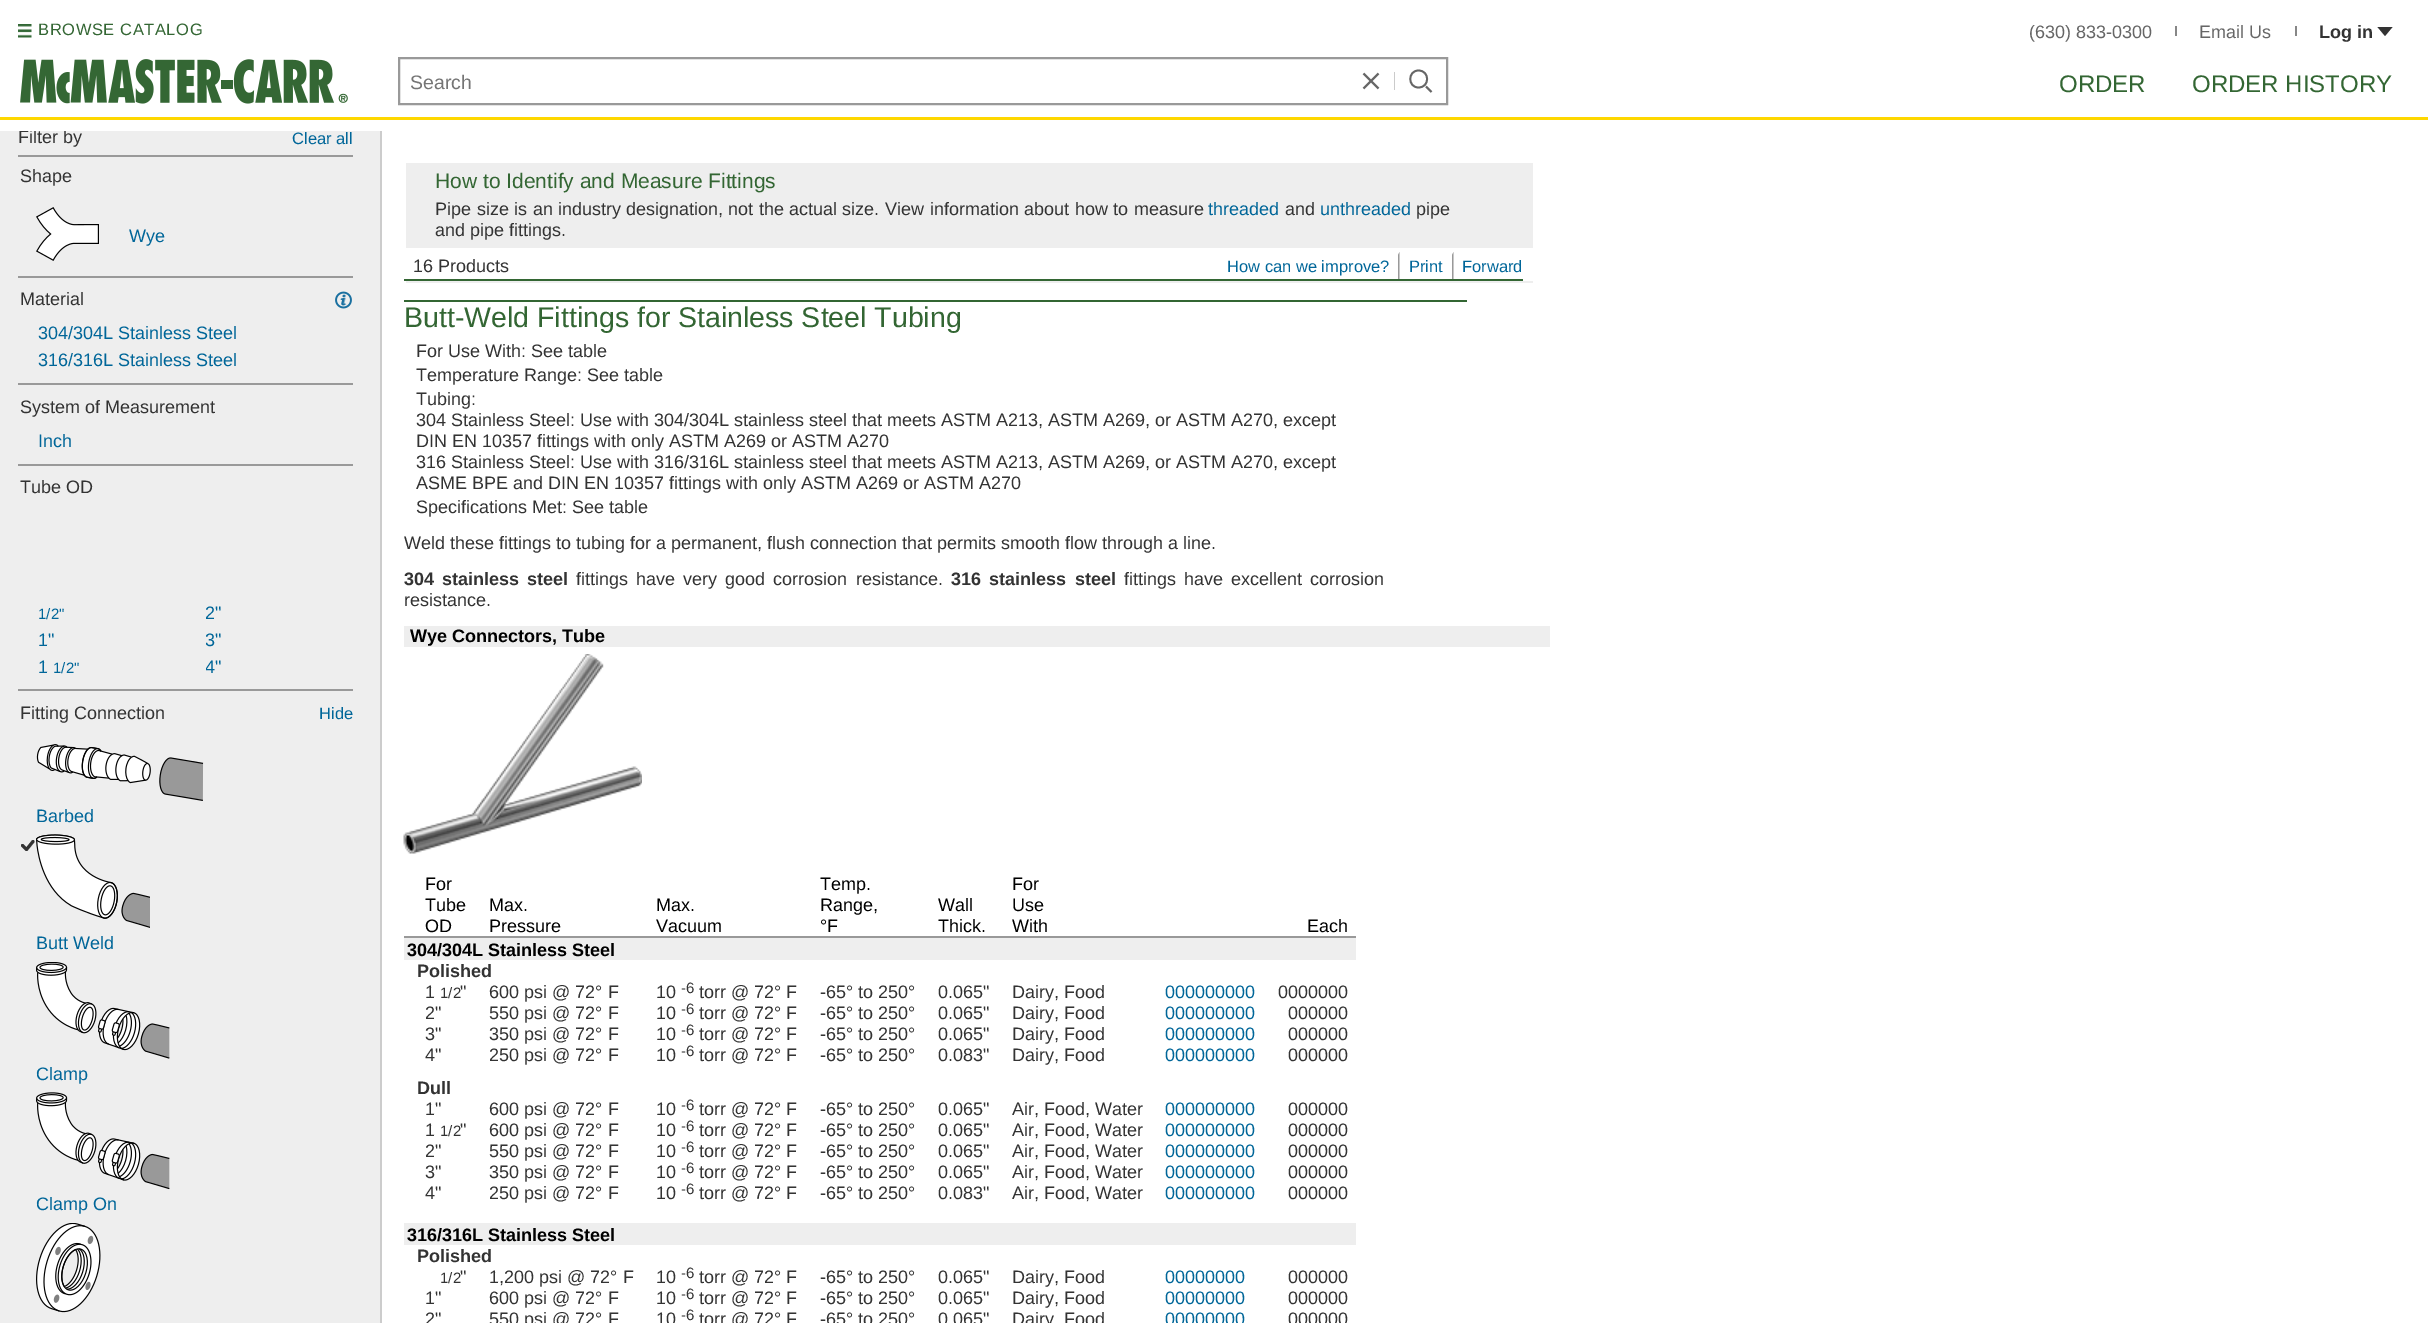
%!PS-Adobe-3.0
%%BoundingBox: 0 0 2428 1323
%%LanguageLevel: 3
%%Pages: 1
%%EndComments
%%BeginProlog
/m { moveto } bind def
/l { lineto } bind def
/c { curveto } bind def
/h { closepath } bind def
/f { fill } bind def
/S { stroke } bind def
/q { gsave } bind def
/Q { grestore } bind def
/w { setlinewidth } bind def
/fn { [ exch dup neg 0 0 3 -1 roll 0 0 ] selectfont } def
/tx { moveto show } def
/bx { rectfill } def
/im { 5 dict begin { /h /w /y /x /name } { exch def } forall
  gsave x y translate w h scale
  w h 8 [w 0 0 h 0 0] name (r) file false 3 colorimage grestore end } def
%%EndProlog
%%BeginSetup
<< /PageSize [2428 1323] >> setpagedevice
%%EndSetup
%%Page: 1 1
0 1323 translate 1 -1 scale
4 setmiterlimit
1 setgray
0 0 2428 1323 bx
0.933 setgray
0 131 380 1192 bx
/LiberationSans-Regular 18 fn
0.2 setgray
(Filter by) 18 143 tx
1 setgray
0 120 m 0 131 l 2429 131 l 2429 11 l 2428 11 l 2428 120 l h f
0.996 0.843 0 setrgbcolor
0 117 2428 3 bx
(image0.raw) 18 24 14 14 im
/LiberationSans-Regular 16.5 fn
0.2 0.4 0.2 setrgbcolor
38 35 m 0.6 0 (BROWSE CATALOG) ashow
/LiberationSans-Regular 18 fn
0.4 setgray
(\(630\) 833-0300) 2029 38 tx
0.529 setgray
2175 26 2 10 bx
0.4 setgray
(Email Us) 2199 38 tx
0.529 setgray
2295 26 2 10 bx
/LiberationSans-Bold 18 fn
0.2 setgray
(Log in) 2319 38 tx
2377.5 27 m 2385 36 l 2392.5 27 l h f
(image1.raw) 20 59 328 45 im
0.6 setgray
2 w
399 58 1048 46 rectstroke
/LiberationSans-Regular 19.5 fn
0.459 setgray
(Search) 410 89 tx
0.4 setgray
1.8 w
1363.5 73.5 m 1378.5 88.5 l 1378.5 73.5 m 1363.5 88.5 l S
0.796 setgray
1394 72 1 18 bx
0.4 setgray
1426 86.5 m 1431.5 92 l 1418.5 87.5 m 1430 87.5 1430 70.5 1418.5 70.5 c 1407.5 70.5 1407.5 87.5 1418.5 87.5 c h S
/LiberationSans-Regular 24 fn
0.2 0.4 0.2 setrgbcolor
(ORDER) 2059 92 tx
(ORDER HISTORY) 2192 92 tx
0.8 setgray
380 131 2 1192 bx
0.6 setgray
18 155 335 2 bx
/LiberationSans-Regular 16.5 fn
0 0.4 0.6 setrgbcolor
(Clear all) 292 144 tx
/LiberationSans-Regular 18 fn
0.2 setgray
(Shape) 20 182 tx
(image2.raw) 36 207 63 54 im
0 0.4 0.6 setrgbcolor
(Wye) 129 242 tx
0.6 setgray
18 276 335 2 bx
0.2 setgray
(Material) 20 305 tx
(image3.raw) 335 291 17 18 im
0 0.4 0.6 setrgbcolor
(304/304L Stainless Steel) 38 339 tx
(316/316L Stainless Steel) 38 366 tx
0.6 setgray
18 383 335 2 bx
0.2 setgray
(System of Measurement) 20 413 tx
0 0.4 0.6 setrgbcolor
(Inch) 38 447 tx
0.6 setgray
18 464 335 2 bx
0.2 setgray
(Tube OD) 20 493 tx
/LiberationSans-Regular 15 fn
0 0.4 0.6 setrgbcolor
(1/2") 38 619 tx
/LiberationSans-Regular 18 fn
(1") 38 646 tx
(1) 38 673 tx
/LiberationSans-Regular 15 fn
(1/2") 53 673 tx
q
206 602 148 21 rectclip
/LiberationSans-Regular 18 fn
(2") 205 619 tx
Q
q
206 629 148 21 rectclip
/LiberationSans-Regular 18 fn
(3") 205 646 tx
Q
q
206 656 148 21 rectclip
/LiberationSans-Regular 18 fn
(4") 205 673 tx
Q
0.6 setgray
18 689 335 2 bx
/LiberationSans-Regular 18 fn
0.2 setgray
(Fitting Connection) 20 719 tx
/LiberationSans-Regular 16.5 fn
0 0.4 0.6 setrgbcolor
(Hide) 319 719 tx
(image4.raw) 36 744 168 57 im
/LiberationSans-Regular 18 fn
(Barbed) 36 822 tx
0.2 setgray
3 w
1 setlinecap
1 setlinejoin
22.5 845.5 m 26.5 849.5 l 33 841.5 l S
(image5.raw) 36 834 114 94 im
0 0.4 0.6 setrgbcolor
(Butt Weld) 36 949 tx
(image6.raw) 36 962 134 97 im
(Clamp) 36 1080 tx
(image7.raw) 36 1092 134 98 im
(Clamp On) 36 1210 tx
(image8.raw) 36 1223 65 90 im
0.933 setgray
406 163 1127 120 bx
/LiberationSans-Regular 21 fn
0.2 0.4 0.2 setrgbcolor
(How to Identify and Measure Fittings) 435 188 tx
/LiberationSans-Regular 18 fn
0.2 setgray
435 215 m 0.5 0 32 (Pipe size is an industry) widthshow
(designation,) 626 215 tx
728 215 m 0.5 0 32 (not the actual) widthshow
(size.) 842 215 tx
885 215 m 0.5 0 32 (View information about how to measure) widthshow
0 0.4 0.6 setrgbcolor
(threaded) 1208 215 tx
0.2 setgray
(and) 1285 215 tx
0 0.4 0.6 setrgbcolor
(unthreaded) 1320 215 tx
0.2 setgray
(pipe) 1416 215 tx
(and pipe fittings.) 435 236 tx
0.2 0.4 0.2 setrgbcolor
404 300 1063 2 bx
/LiberationSans-Regular 28.5 fn
(Butt-Weld Fittings for Stainless Steel Tubing) 404 327 tx
/LiberationSans-Regular 18 fn
0.2 setgray
(For Use With: See table) 416 357 tx
(Temperature Range: See table) 416 381 tx
(Tubing:) 416 405 tx
(304 Stainless Steel: Use with 304/304L stainless steel that meets ASTM A213, ASTM A269, or ASTM A270, except) 416 426 tx
(DIN EN 10357 fittings with only ASTM A269 or ASTM A270) 416 447 tx
(316 Stainless Steel: Use with 316/316L stainless steel that meets ASTM A213, ASTM A269, or ASTM A270, except) 416 468 tx
(ASME BPE and DIN EN 10357 fittings with only ASTM A269 or ASTM A270) 416 489 tx
(Specifications Met: See table) 416 513 tx
(Weld these fittings to tubing for a permanent, flush connection that permits smooth flow through a line.) 404 549 tx
/LiberationSans-Bold 18 fn
(304) 404 585 tx
(stainless) 442 585 tx
(steel) 527 585 tx
/LiberationSans-Regular 18 fn
576 585 m 3 0 32 (fittings have very good corrosion) widthshow
(resistance.) 856 585 tx
/LiberationSans-Bold 18 fn
(316) 951 585 tx
(stainless) 989 585 tx
(steel) 1075 585 tx
/LiberationSans-Regular 18 fn
1124 585 m 3 0 32 (fittings have excellent corrosion) widthshow
(resistance.) 404 606 tx
0.933 setgray
404 626 1146 21 bx
/LiberationSans-Bold 18 fn
0 setgray
(Wye Connectors, Tube) 410 642 tx
(image9.raw) 403 654 239 200 im
0.6 setgray
404 936 952 2 bx
/LiberationSans-Regular 18 fn
0 setgray
(For) 425 890 tx
(Tube) 425 911 tx
(OD) 425 932 tx
(Max.) 489 911 tx
(Pressure) 489 932 tx
(Max.) 656 911 tx
(Vacuum) 656 932 tx
(Temp.) 820 890 tx
(Range,) 820 911 tx
(°F) 820 932 tx
(Wall) 938 911 tx
(Thick.) 938 932 tx
(For) 1012 890 tx
(Use) 1012 911 tx
(With) 1012 932 tx
(Each) 1307 932 tx
0.933 setgray
404 938 952 22 bx
/LiberationSans-Bold 18 fn
0 setgray
(304/304L Stainless Steel) 407 956 tx
0.2 setgray
(Polished) 417 977 tx
/LiberationSans-Regular 18 fn
(1) 425 998 tx
/LiberationSans-Regular 15 fn
(1/2) 440 998 tx
/LiberationSans-Regular 18 fn
(") 460 998 tx
(600 psi @ 72° F) 489 998 tx
(10) 656 998 tx
/LiberationSans-Regular 15 fn
(-6) 681 993 tx
/LiberationSans-Regular 18 fn
(torr @ 72° F) 699 998 tx
(-65° to 250°) 820 998 tx
(0.065") 938 998 tx
(Dairy, Food) 1012 998 tx
0 0.4 0.6 setrgbcolor
(000000000) 1165 998 tx
0.2 setgray
(0000000) 1278 998 tx
(2") 425 1019 tx
(550 psi @ 72° F) 489 1019 tx
(10) 656 1019 tx
/LiberationSans-Regular 15 fn
(-6) 681 1014 tx
/LiberationSans-Regular 18 fn
(torr @ 72° F) 699 1019 tx
(-65° to 250°) 820 1019 tx
(0.065") 938 1019 tx
(Dairy, Food) 1012 1019 tx
0 0.4 0.6 setrgbcolor
(000000000) 1165 1019 tx
0.2 setgray
(000000) 1288 1019 tx
(3") 425 1040 tx
(350 psi @ 72° F) 489 1040 tx
(10) 656 1040 tx
/LiberationSans-Regular 15 fn
(-6) 681 1035 tx
/LiberationSans-Regular 18 fn
(torr @ 72° F) 699 1040 tx
(-65° to 250°) 820 1040 tx
(0.065") 938 1040 tx
(Dairy, Food) 1012 1040 tx
0 0.4 0.6 setrgbcolor
(000000000) 1165 1040 tx
0.2 setgray
(000000) 1288 1040 tx
(4") 425 1061 tx
(250 psi @ 72° F) 489 1061 tx
(10) 656 1061 tx
/LiberationSans-Regular 15 fn
(-6) 681 1056 tx
/LiberationSans-Regular 18 fn
(torr @ 72° F) 699 1061 tx
(-65° to 250°) 820 1061 tx
(0.083") 938 1061 tx
(Dairy, Food) 1012 1061 tx
0 0.4 0.6 setrgbcolor
(000000000) 1165 1061 tx
0.2 setgray
(000000) 1288 1061 tx
/LiberationSans-Bold 18 fn
(Dull) 417 1094 tx
/LiberationSans-Regular 18 fn
(1") 425 1115 tx
(600 psi @ 72° F) 489 1115 tx
(10) 656 1115 tx
/LiberationSans-Regular 15 fn
(-6) 681 1110 tx
/LiberationSans-Regular 18 fn
(torr @ 72° F) 699 1115 tx
(-65° to 250°) 820 1115 tx
(0.065") 938 1115 tx
(Air, Food, Water) 1012 1115 tx
0 0.4 0.6 setrgbcolor
(000000000) 1165 1115 tx
0.2 setgray
(000000) 1288 1115 tx
(1) 425 1136 tx
/LiberationSans-Regular 15 fn
(1/2) 440 1136 tx
/LiberationSans-Regular 18 fn
(") 460 1136 tx
(600 psi @ 72° F) 489 1136 tx
(10) 656 1136 tx
/LiberationSans-Regular 15 fn
(-6) 681 1131 tx
/LiberationSans-Regular 18 fn
(torr @ 72° F) 699 1136 tx
(-65° to 250°) 820 1136 tx
(0.065") 938 1136 tx
(Air, Food, Water) 1012 1136 tx
0 0.4 0.6 setrgbcolor
(000000000) 1165 1136 tx
0.2 setgray
(000000) 1288 1136 tx
(2") 425 1157 tx
(550 psi @ 72° F) 489 1157 tx
(10) 656 1157 tx
/LiberationSans-Regular 15 fn
(-6) 681 1152 tx
/LiberationSans-Regular 18 fn
(torr @ 72° F) 699 1157 tx
(-65° to 250°) 820 1157 tx
(0.065") 938 1157 tx
(Air, Food, Water) 1012 1157 tx
0 0.4 0.6 setrgbcolor
(000000000) 1165 1157 tx
0.2 setgray
(000000) 1288 1157 tx
(3") 425 1178 tx
(350 psi @ 72° F) 489 1178 tx
(10) 656 1178 tx
/LiberationSans-Regular 15 fn
(-6) 681 1173 tx
/LiberationSans-Regular 18 fn
(torr @ 72° F) 699 1178 tx
(-65° to 250°) 820 1178 tx
(0.065") 938 1178 tx
(Air, Food, Water) 1012 1178 tx
0 0.4 0.6 setrgbcolor
(000000000) 1165 1178 tx
0.2 setgray
(000000) 1288 1178 tx
(4") 425 1199 tx
(250 psi @ 72° F) 489 1199 tx
(10) 656 1199 tx
/LiberationSans-Regular 15 fn
(-6) 681 1194 tx
/LiberationSans-Regular 18 fn
(torr @ 72° F) 699 1199 tx
(-65° to 250°) 820 1199 tx
(0.083") 938 1199 tx
(Air, Food, Water) 1012 1199 tx
0 0.4 0.6 setrgbcolor
(000000000) 1165 1199 tx
0.2 setgray
(000000) 1288 1199 tx
0.933 setgray
404 1223 952 22 bx
/LiberationSans-Bold 18 fn
0 setgray
(316/316L Stainless Steel) 407 1241 tx
0.2 setgray
(Polished) 417 1262 tx
/LiberationSans-Regular 15 fn
(1/2) 440 1283 tx
/LiberationSans-Regular 18 fn
(") 460 1283 tx
(1,200 psi @ 72° F) 489 1283 tx
(10) 656 1283 tx
/LiberationSans-Regular 15 fn
(-6) 681 1278 tx
/LiberationSans-Regular 18 fn
(torr @ 72° F) 699 1283 tx
(-65° to 250°) 820 1283 tx
(0.065") 938 1283 tx
(Dairy, Food) 1012 1283 tx
0 0.4 0.6 setrgbcolor
(00000000) 1165 1283 tx
0.2 setgray
(000000) 1288 1283 tx
(1") 425 1304 tx
(600 psi @ 72° F) 489 1304 tx
(10) 656 1304 tx
/LiberationSans-Regular 15 fn
(-6) 681 1299 tx
/LiberationSans-Regular 18 fn
(torr @ 72° F) 699 1304 tx
(-65° to 250°) 820 1304 tx
(0.065") 938 1304 tx
(Dairy, Food) 1012 1304 tx
0 0.4 0.6 setrgbcolor
(00000000) 1165 1304 tx
0.2 setgray
(000000) 1288 1304 tx
(2") 425 1325 tx
(550 psi @ 72° F) 489 1325 tx
(10) 656 1325 tx
/LiberationSans-Regular 15 fn
(-6) 681 1320 tx
/LiberationSans-Regular 18 fn
(torr @ 72° F) 699 1325 tx
(-65° to 250°) 820 1325 tx
(0.065") 938 1325 tx
(Dairy, Food) 1012 1325 tx
0 0.4 0.6 setrgbcolor
(00000000) 1165 1325 tx
0.2 setgray
(000000) 1288 1325 tx
0.2 0.4 0.2 setrgbcolor
404 279 1119 2 bx
1 setgray
406 248 1117 31 bx
1523 248 10 33 bx
0.2 setgray
(16 Products) 413 272 tx
0.6 setgray
1399.5 252 m 1399.5 279 l 1398 279 l 1398 255 l h f
/LiberationSans-Regular 16.5 fn
0 0.4 0.6 setrgbcolor
(How can we improve?) 1227 272 tx
0.6 setgray
1453.5 252 m 1453.5 279 l 1452 279 l 1452 255 l h f
0 0.4 0.6 setrgbcolor
(Print) 1409 272 tx
(Forward) 1462 272 tx
showpage
%%EOF
